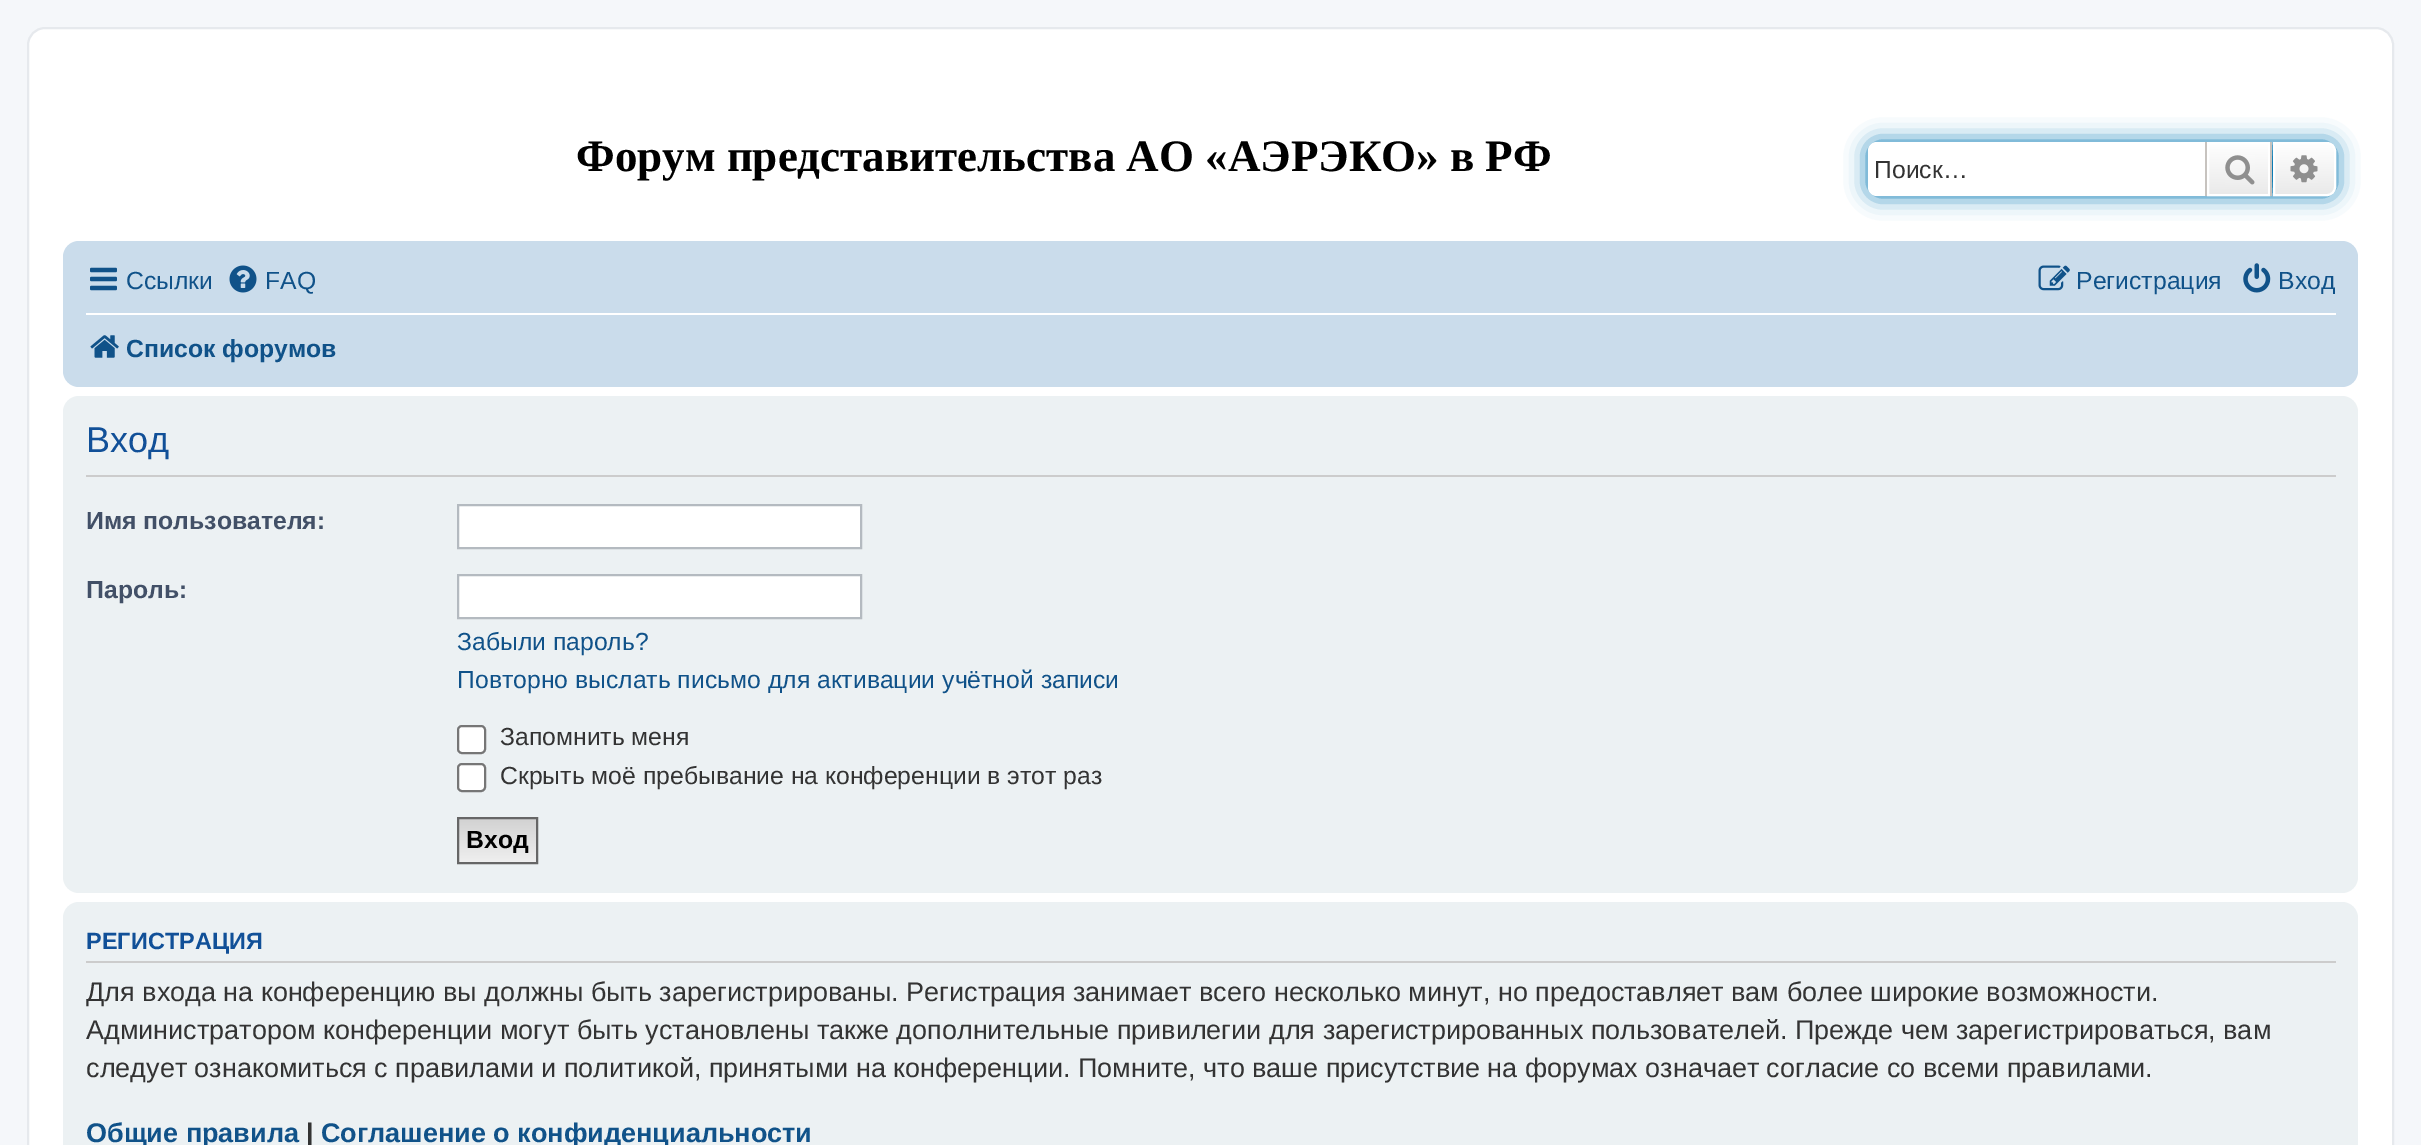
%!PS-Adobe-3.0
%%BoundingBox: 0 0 2421 1145
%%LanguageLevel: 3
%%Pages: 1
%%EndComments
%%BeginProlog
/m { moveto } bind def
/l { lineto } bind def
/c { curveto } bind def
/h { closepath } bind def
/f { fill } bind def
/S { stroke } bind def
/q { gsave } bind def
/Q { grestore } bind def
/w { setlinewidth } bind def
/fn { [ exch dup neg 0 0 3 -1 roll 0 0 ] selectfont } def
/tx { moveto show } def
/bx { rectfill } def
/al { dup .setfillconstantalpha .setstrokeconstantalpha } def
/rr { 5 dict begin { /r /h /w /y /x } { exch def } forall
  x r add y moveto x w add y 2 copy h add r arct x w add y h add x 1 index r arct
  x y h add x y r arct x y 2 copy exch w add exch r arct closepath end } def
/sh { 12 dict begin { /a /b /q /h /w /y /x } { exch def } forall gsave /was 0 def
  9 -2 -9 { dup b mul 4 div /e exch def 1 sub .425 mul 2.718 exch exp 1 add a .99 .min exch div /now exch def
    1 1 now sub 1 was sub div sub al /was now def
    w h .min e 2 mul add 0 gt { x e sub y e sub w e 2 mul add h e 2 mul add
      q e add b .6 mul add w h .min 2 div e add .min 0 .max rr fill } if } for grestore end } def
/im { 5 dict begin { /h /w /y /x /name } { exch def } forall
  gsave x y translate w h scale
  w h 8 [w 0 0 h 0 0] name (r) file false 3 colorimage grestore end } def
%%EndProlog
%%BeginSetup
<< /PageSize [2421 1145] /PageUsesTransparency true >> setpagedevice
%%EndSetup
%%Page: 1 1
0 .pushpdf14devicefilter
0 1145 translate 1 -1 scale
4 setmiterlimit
0.961 0.969 0.98 setrgbcolor
0 0 2421 1145 bx
1 setgray
28 28 2365 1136 17 rr q f Q
0.902 0.914 0.929 setrgbcolor
2 w
S
/LiberationSerif-Bold 45 fn
0 setgray
(Форум представительства АО «АЭРЭКО» в РФ) 576 171 tx
0 0.459 0.69 setrgbcolor
1868 142 468 54 9 11 1 sh
1 setgray
1877 142 m 2205 142 l 2205 196 l 1877 196 l 1872 196 1868 192 1868 187 c 1868 151 l 1868 146 1872 142 1877 142 c h f
/LiberationSans-Regular 24.75 fn
0.2 setgray
(Поиск…) 1874 178 tx
q 2209 144 m 2268 144 l 2268 194 l 2209 194 l h clip newpath
<< /ShadingType 2 /ColorSpace /DeviceRGB /Coords [2239 142 2239 196] /Extend [true true] /Function << /FunctionType 2 /Domain [0 1] /C0 [1 1 1] /C1 [0.914 0.914 0.914] /N 1 >> >> shfill Q
1 setgray
2208 143 61 52 rectstroke
0.78 0.765 0.749 setrgbcolor
2270 142 2 54 bx
2205 142 2 54 bx
(image0.raw) 2225 155 30 30 im
q 2274 143 m 2327 143 l 2331.5 143 2335 146.5 2335 151 c 2335 187 l 2335 191.5 2331.5 195 2327 195 c 2274 195 l h clip newpath
<< /ShadingType 2 /ColorSpace /DeviceRGB /Coords [2304 142 2304 196] /Extend [true true] /Function << /FunctionType 2 /Domain [0 1] /C0 [1 1 1] /C1 [0.914 0.914 0.914] /N 1 >> >> shfill Q
1 setgray
2274 143 m 2327 143 l 2331.5 143 2335 146.5 2335 151 c 2335 187 l 2335 191.5 2331.5 195 2327 195 c 2274 195 l h S
(image1.raw) 2290 155 28 28 im
0.792 0.863 0.922 setrgbcolor
63 241 2295 146 16 rr f
(image2.raw) 90 267 27 24 im
0.063 0.322 0.537 setrgbcolor
(Ссылки) 126 289 tx
(image3.raw) 229 265 28 28 im
(FAQ) 265 289 tx
(image4.raw) 2038 265 32 26 im
(Регистрация) 2076 289 tx
(image5.raw) 2243 263 28 30 im
(Вход) 2278 289 tx
1 setgray
86 313 2250 2 bx
(image6.raw) 90 335 29 23 im
/LiberationSans-Bold 24.75 fn
0.063 0.322 0.537 setrgbcolor
(Список форумов) 126 357 tx
0.925 0.945 0.953 setrgbcolor
63 396 2295 497 16 rr f
0.8 setgray
86 475 2250 2 bx
/LiberationSans-Regular 36 fn
0.067 0.314 0.596 setrgbcolor
(Вход) 86 452 tx
/LiberationSans-Bold 24.75 fn
0.259 0.314 0.404 setrgbcolor
(Имя пользователя:) 86 529 tx
1 setgray
458 505 m 861 505 l 861 548 l 458 548 l h q f Q
0.706 0.729 0.753 setrgbcolor
S
0.259 0.314 0.404 setrgbcolor
(Пароль:) 86 598 tx
1 setgray
458 575 m 861 575 l 861 618 l 458 618 l h q f Q
0.706 0.729 0.753 setrgbcolor
S
/LiberationSans-Regular 24.75 fn
0.063 0.322 0.537 setrgbcolor
(Забыли пароль?) 457 650 tx
(Повторно выслать письмо для активации учётной записи) 457 688 tx
1 setgray
458 726 27 27 4 rr q f Q
0.463 setgray
S
0.2 setgray
(Запомнить меня) 500 745 tx
1 setgray
458 764 27 27 4 rr q f Q
0.463 setgray
S
0.2 setgray
(Скрыть моё пребывание на конференции в этот раз) 500 784 tx
q 459 819 m 536 819 l 536 862 l 459 862 l h clip newpath
<< /ShadingType 2 /ColorSpace /DeviceRGB /Coords [497 819 497 862] /Extend [true true] /Function << /FunctionType 2 /Domain [0 1] /C0 [0.824 0.824 0.824] /C1 [0.937 0.937 0.937] /N 1 >> >> shfill Q
0.4 setgray
458 818 79 45 rectstroke
/LiberationSans-Bold 24.75 fn
0 setgray
(Вход) 466 848 tx
0.925 0.945 0.953 setrgbcolor
63 902 2295 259 16 rr f
0.8 setgray
86 961 2250 2 bx
/LiberationSans-Bold 23.5 fn
0.067 0.314 0.596 setrgbcolor
(РЕГИСТРАЦИЯ) 86 949 tx
q
86 914 2250 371 rectclip
/LiberationSans-Regular 27 fn
0.2 setgray
(Для входа на конференцию вы должны быть зарегистрированы. Регистрация занимает всего несколько минут, но предоставляет вам более широкие возможности.) 86 1001 tx
Q
/LiberationSans-Regular 27 fn
0.2 setgray
(Администратором конференции могут быть установлены также дополнительные привилегии для зарегистрированных пользователей. Прежде чем зарегистрироваться, вам) 86 1039 tx
(следует ознакомиться с правилами и политикой, принятыми на конференции. Помните, что ваше присутствие на форумах означает согласие со всеми правилами.) 86 1077 tx
/LiberationSans-Bold 27 fn
0.063 0.322 0.537 setrgbcolor
(Общие правила) 86 1142 tx
0.2 setgray
(|) 306 1142 tx
0.063 0.322 0.537 setrgbcolor
(Соглашение о конфиденциальности) 321 1142 tx
.poppdf14devicefilter showpage
%%EOF
